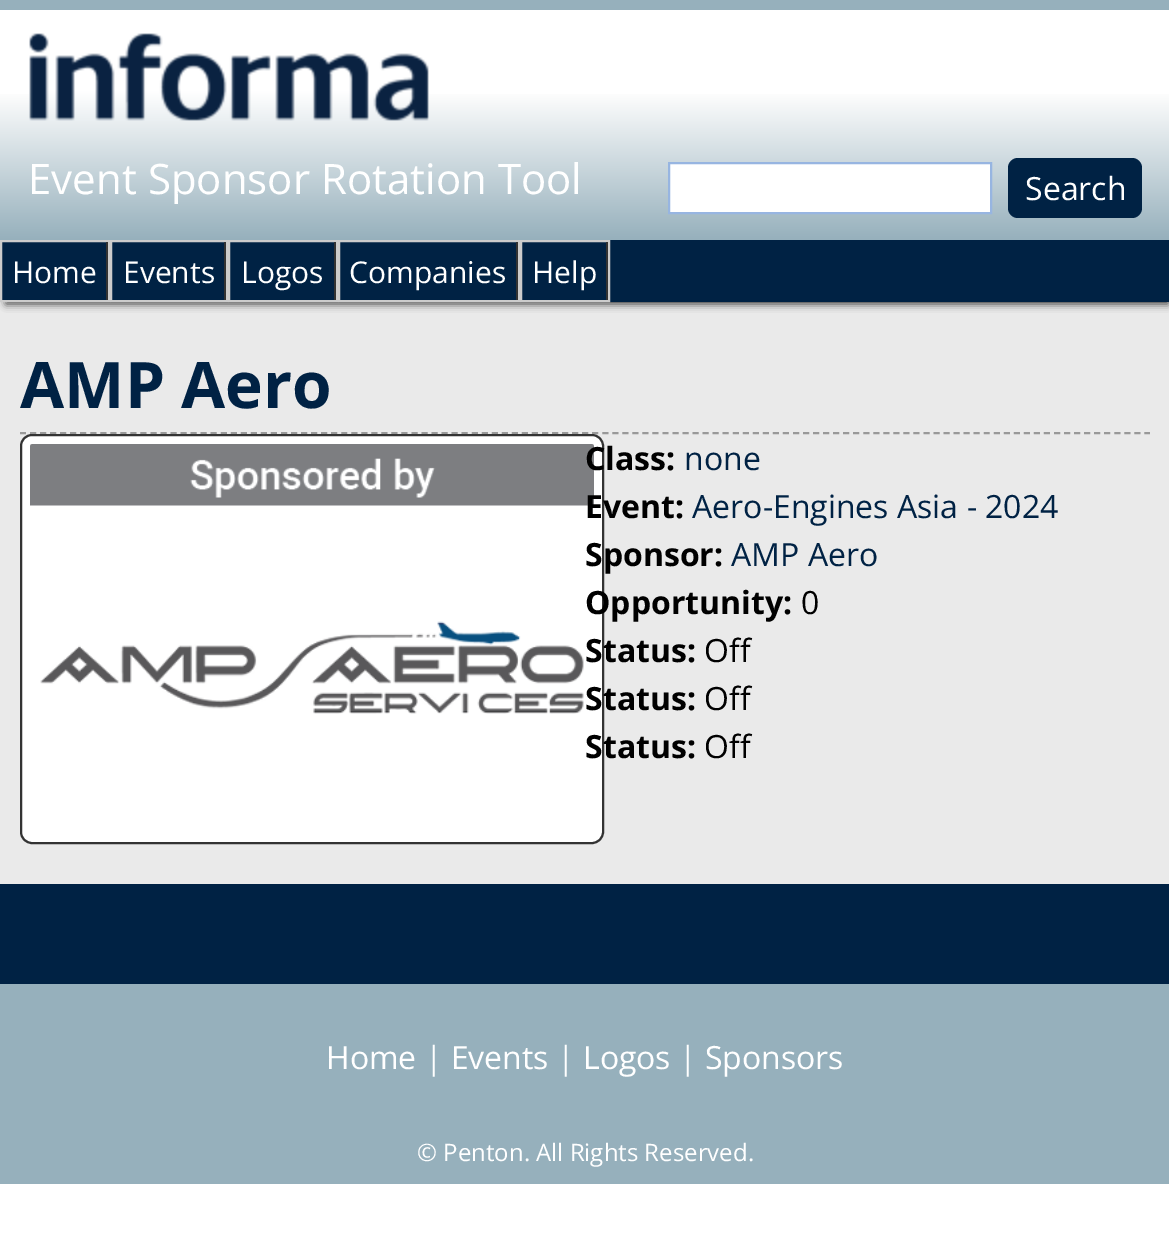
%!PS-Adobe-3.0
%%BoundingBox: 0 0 1169 1247
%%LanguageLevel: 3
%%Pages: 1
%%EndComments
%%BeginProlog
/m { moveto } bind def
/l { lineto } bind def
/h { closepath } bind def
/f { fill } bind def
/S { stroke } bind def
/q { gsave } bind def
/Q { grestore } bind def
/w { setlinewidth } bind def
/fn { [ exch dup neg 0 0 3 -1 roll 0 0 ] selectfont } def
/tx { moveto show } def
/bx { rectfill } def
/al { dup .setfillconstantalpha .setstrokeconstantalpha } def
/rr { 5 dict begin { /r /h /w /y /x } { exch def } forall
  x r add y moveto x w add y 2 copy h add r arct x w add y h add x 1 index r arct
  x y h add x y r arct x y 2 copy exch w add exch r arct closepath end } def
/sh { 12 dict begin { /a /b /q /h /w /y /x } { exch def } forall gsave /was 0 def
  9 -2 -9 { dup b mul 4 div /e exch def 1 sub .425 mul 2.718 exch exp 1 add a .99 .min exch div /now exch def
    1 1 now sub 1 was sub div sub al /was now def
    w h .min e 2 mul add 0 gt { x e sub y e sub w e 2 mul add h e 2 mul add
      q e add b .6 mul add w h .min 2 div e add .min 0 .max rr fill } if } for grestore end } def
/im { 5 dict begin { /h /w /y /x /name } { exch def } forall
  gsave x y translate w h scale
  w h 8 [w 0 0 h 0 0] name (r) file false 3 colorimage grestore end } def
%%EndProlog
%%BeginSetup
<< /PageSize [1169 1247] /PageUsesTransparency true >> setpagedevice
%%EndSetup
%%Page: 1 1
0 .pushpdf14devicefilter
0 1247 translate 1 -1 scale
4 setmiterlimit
1 setgray
0 0 1169 1247 bx
q 0 94 m 1169 94 l 1169 240 l 0 240 l h clip newpath
<< /ShadingType 2 /ColorSpace /DeviceRGB /Coords [585 10 585 240] /Extend [true true] /Function << /FunctionType 3 /Domain [0 1] /Functions [<< /FunctionType 2 /Domain [0 1] /C0 [1 1 1] /C1 [1 1 1] /N 1 >> << /FunctionType 2 /Domain [0 1] /C0 [1 1 1] /C1 [0.588 0.69 0.737] /N 1 >>] /Bounds [0.35] /Encode [0 1 0 1] >> >> shfill Q
0.588 0.69 0.737 setrgbcolor
0 0 1169 10 bx
(image0.raw) 29 33 400 88 im
/OpenSans-Regular 42 fn
1 setgray
(Event Sponsor Rotation Tool) 28 194 tx
0.918 setgray
0 302 1169 582 bx
1 setgray
669 163 m 991 163 l 991 213 l 669 213 l h q f Q
0.592 0.71 0.882 setrgbcolor
2 w
S
0 0.133 0.267 setrgbcolor
1008 158 134 60 10 rr f
/OpenSans-Regular 32 fn
1 setgray
(Search) 1025 200 tx
0.2 setgray
6 250 1162 54 0 4 1 sh
0 0.133 0.267 setrgbcolor
2 240 1167 62 bx
0.8 setgray
1 241 108 60 rectstroke
0.2 setgray
106 242 2 58 bx
/OpenSans-Regular 30 fn
1 setgray
(Home) 12 283 tx
0.8 setgray
111 241 116 60 rectstroke
0.2 setgray
224 242 2 58 bx
1 setgray
(Events) 123 283 tx
0.8 setgray
229 241 108 60 rectstroke
0.2 setgray
334 242 2 58 bx
1 setgray
(Logos) 241 283 tx
0.8 setgray
339 241 180 60 rectstroke
0.2 setgray
516 242 2 58 bx
1 setgray
(Companies) 349 283 tx
0.8 setgray
521 241 88 60 rectstroke
0.2 setgray
606 242 2 58 bx
1 setgray
(Help) 532 283 tx
0.6 setgray
[6 4.04] 0 setdash
20 433 m 1150 433 l S
/OpenSans-Bold 64 fn
0 0.133 0.267 setrgbcolor
(AMP Aero) 20 408 tx
1 setgray
21 435 582 408 11 rr q f Q
0.2 setgray
[] 0 setdash
S
(image1.raw) 30 444 564 270 im
/OpenSans-Bold 32 fn
0 setgray
(Class:) 585 470 tx
/OpenSans-Regular 32 fn
0 0.133 0.267 setrgbcolor
(none) 684 470 tx
/OpenSans-Bold 32 fn
0 setgray
(Event:) 585 518 tx
/OpenSans-Regular 32 fn
0 0.133 0.267 setrgbcolor
(Aero-Engines Asia - 2024) 692 518 tx
/OpenSans-Bold 32 fn
0 setgray
(Sponsor:) 585 566 tx
/OpenSans-Regular 32 fn
0 0.133 0.267 setrgbcolor
(AMP Aero) 731 566 tx
/OpenSans-Bold 32 fn
0 setgray
(Opportunity:) 585 614 tx
/OpenSans-Regular 32 fn
(0) 801 614 tx
/OpenSans-Bold 32 fn
(Status:) 585 662 tx
/OpenSans-Regular 32 fn
(Off) 704 662 tx
/OpenSans-Bold 32 fn
(Status:) 585 710 tx
/OpenSans-Regular 32 fn
(Off) 704 710 tx
/OpenSans-Bold 32 fn
(Status:) 585 758 tx
/OpenSans-Regular 32 fn
(Off) 704 758 tx
0.588 0.69 0.737 setrgbcolor
0 984 1169 200 bx
0 0.133 0.267 setrgbcolor
0 884 1169 100 bx
1 setgray
(Home | Events | Logos | Sponsors) 326 1069 tx
/OpenSans-Regular 24 fn
(© Penton. All Rights Reserved.) 417 1161 tx
.poppdf14devicefilter showpage
%%EOF
